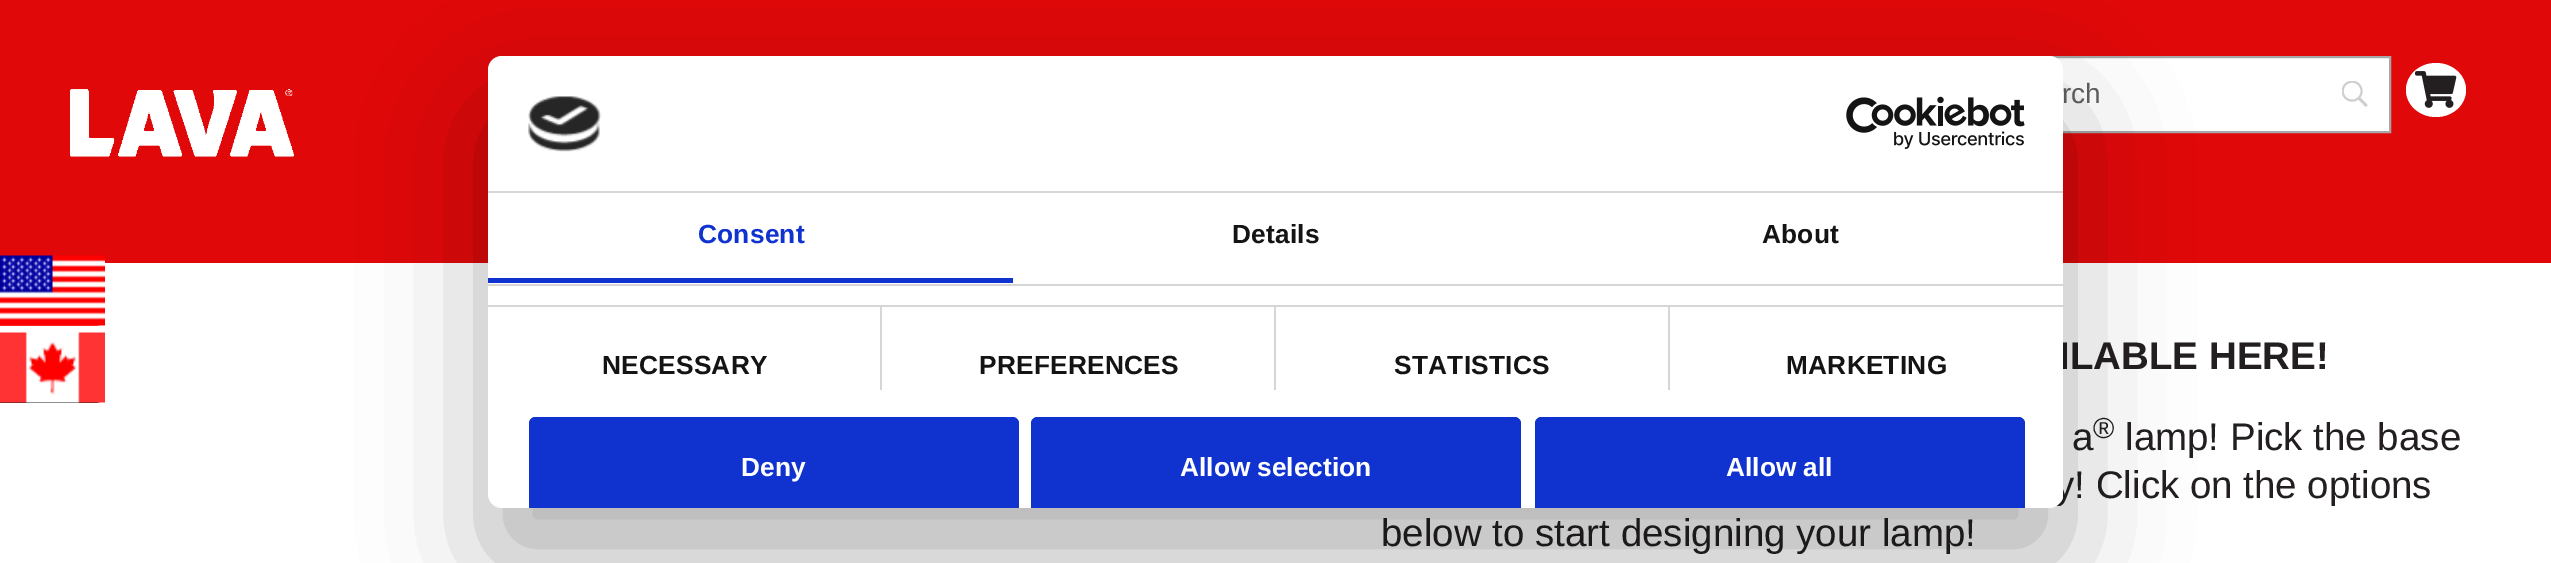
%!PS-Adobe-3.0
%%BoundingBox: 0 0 2551 563
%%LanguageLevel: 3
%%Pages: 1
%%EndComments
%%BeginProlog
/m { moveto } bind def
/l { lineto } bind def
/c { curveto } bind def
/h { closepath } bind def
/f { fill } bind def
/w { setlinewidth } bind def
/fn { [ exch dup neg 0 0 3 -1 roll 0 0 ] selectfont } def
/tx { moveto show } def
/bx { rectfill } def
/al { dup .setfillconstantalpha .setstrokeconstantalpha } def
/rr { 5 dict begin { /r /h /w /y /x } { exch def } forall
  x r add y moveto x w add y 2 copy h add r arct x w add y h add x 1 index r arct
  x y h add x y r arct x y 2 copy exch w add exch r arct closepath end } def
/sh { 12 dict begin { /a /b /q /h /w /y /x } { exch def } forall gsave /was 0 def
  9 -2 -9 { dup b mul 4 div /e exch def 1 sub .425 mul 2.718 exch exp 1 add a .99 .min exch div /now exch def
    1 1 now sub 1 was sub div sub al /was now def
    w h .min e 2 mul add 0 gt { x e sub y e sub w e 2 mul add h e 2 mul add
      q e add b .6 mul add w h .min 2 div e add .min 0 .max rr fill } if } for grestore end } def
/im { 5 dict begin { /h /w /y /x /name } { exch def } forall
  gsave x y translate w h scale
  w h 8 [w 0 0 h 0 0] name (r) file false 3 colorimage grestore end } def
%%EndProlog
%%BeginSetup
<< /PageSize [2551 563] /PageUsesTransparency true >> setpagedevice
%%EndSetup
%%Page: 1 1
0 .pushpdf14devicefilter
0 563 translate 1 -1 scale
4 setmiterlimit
1 setgray
0 0 2551 563 bx
0.878 0.031 0.035 setrgbcolor
0 0 2551 263 bx
(image0.raw) 70 89 224 68 im
1 setgray
2056 58 333 73 bx
(image1.raw) 2342 81 26 26 im
0.655 setgray
2 w
1998 57 392 75 rectstroke
/LiberationSans-Regular 28 fn
0.38 setgray
(rch) 2062 103 tx
1 setgray
2436 63 m 2452.5 63 2466 75 2466 90 c 2466 105 2452.5 117 2436 117 c 2419.5 117 2406 105 2406 90 c 2406 75 2419.5 63 2436 63 c h f
(image2.raw) 2415 71 42 37 im
/LiberationSans-Bold 38.5 fn
0.137 0.122 0.125 setrgbcolor
(ILABLE HERE!) 2059 369 tx
/LiberationSans-Regular 38.5 fn
(a) 2072 450 tx
/LiberationSans-Regular 29 fn
(®) 2093 438 tx
/LiberationSans-Regular 38.5 fn
(lamp! Pick the base) 2125 450 tx
(y! Click on the options) 2055 498 tx
(below to start designing your lamp!) 1381 546 tx
0.957 0.278 0.278 setrgbcolor
-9 256 m 96 256 l 101 256 105 260 105 265 c 105 317 l 105 322 101 326 96 326 c -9 326 l h f
(image3.raw) 0 255 105 71 im
0.129 setgray
-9 333 m 96 333 l 101 333 105 337 105 342 c 105 394 l 105 399 101 403 96 403 c -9 403 l h f
(image4.raw) 0 332 105 71 im
0 setgray
488 112 1575 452 14 59.5 0.3 sh
1 setgray
488 56 1575 452 14 rr f
0.839 setgray
488 191 1575 2 bx
(image5.raw) 528 96 74 56 im
(image6.raw) 1846 96 179 53 im
488 284 1575 2 bx
0.063 0.196 0.812 setrgbcolor
488 278 525 5 bx
/LiberationSans-Bold 26.25 fn
698 243 m 0.25 0 (Consent) ashow
0.078 setgray
1232 243 m 0.25 0 (Details) ashow
1762 243 m 0.25 0 (About) ashow
0.839 setgray
880 306 2 84 bx
1274 306 2 84 bx
1668 306 2 84 bx
488 305 1575 2 bx
0.078 setgray
602 374 m 0.25 0 (NECESSARY) ashow
979 374 m 0.25 0 (PREFERENCES) ashow
1394 374 m 0.25 0 (STATISTICS) ashow
1786 374 m 0.25 0 (MARKETING) ashow
0.063 0.196 0.812 setrgbcolor
536 417 m 1012 417 l 1016 417 1019 420 1019 424 c 1019 508 l 529 508 l 529 424 l 529 420 532 417 536 417 c h f
536 417 m 532 417 529 420 529 424 c 529 508 l 533 508 l 533 424 l 533 422 534 421 536 421 c 1012 421 l 1014 421 1015 422 1015 424 c 1015 508 l 1019 508 l 1019 424 l 1019 420 1016 417 1012 417 c h f
1 setgray
(Deny) 741 476 tx
0.063 0.196 0.812 setrgbcolor
1038 417 m 1514 417 l 1518 417 1521 420 1521 424 c 1521 508 l 1031 508 l 1031 424 l 1031 420 1034 417 1038 417 c h f
1038 417 m 1034 417 1031 420 1031 424 c 1031 508 l 1035 508 l 1035 424 l 1035 422 1036 421 1038 421 c 1514 421 l 1516 421 1517 422 1517 424 c 1517 508 l 1521 508 l 1521 424 l 1521 420 1518 417 1514 417 c h f
1 setgray
(Allow selection) 1180 476 tx
0.063 0.196 0.812 setrgbcolor
1542 417 m 2018 417 l 2022 417 2025 420 2025 424 c 2025 508 l 1535 508 l 1535 424 l 1535 420 1538 417 1542 417 c h f
1542 417 m 1538 417 1535 420 1535 424 c 1535 508 l 1539 508 l 1539 424 l 1539 422 1540 421 1542 421 c 2018 421 l 2020 421 2021 422 2021 424 c 2021 508 l 2025 508 l 2025 424 l 2025 420 2022 417 2018 417 c h f
1 setgray
(Allow all) 1726 476 tx
.poppdf14devicefilter showpage
%%EOF
